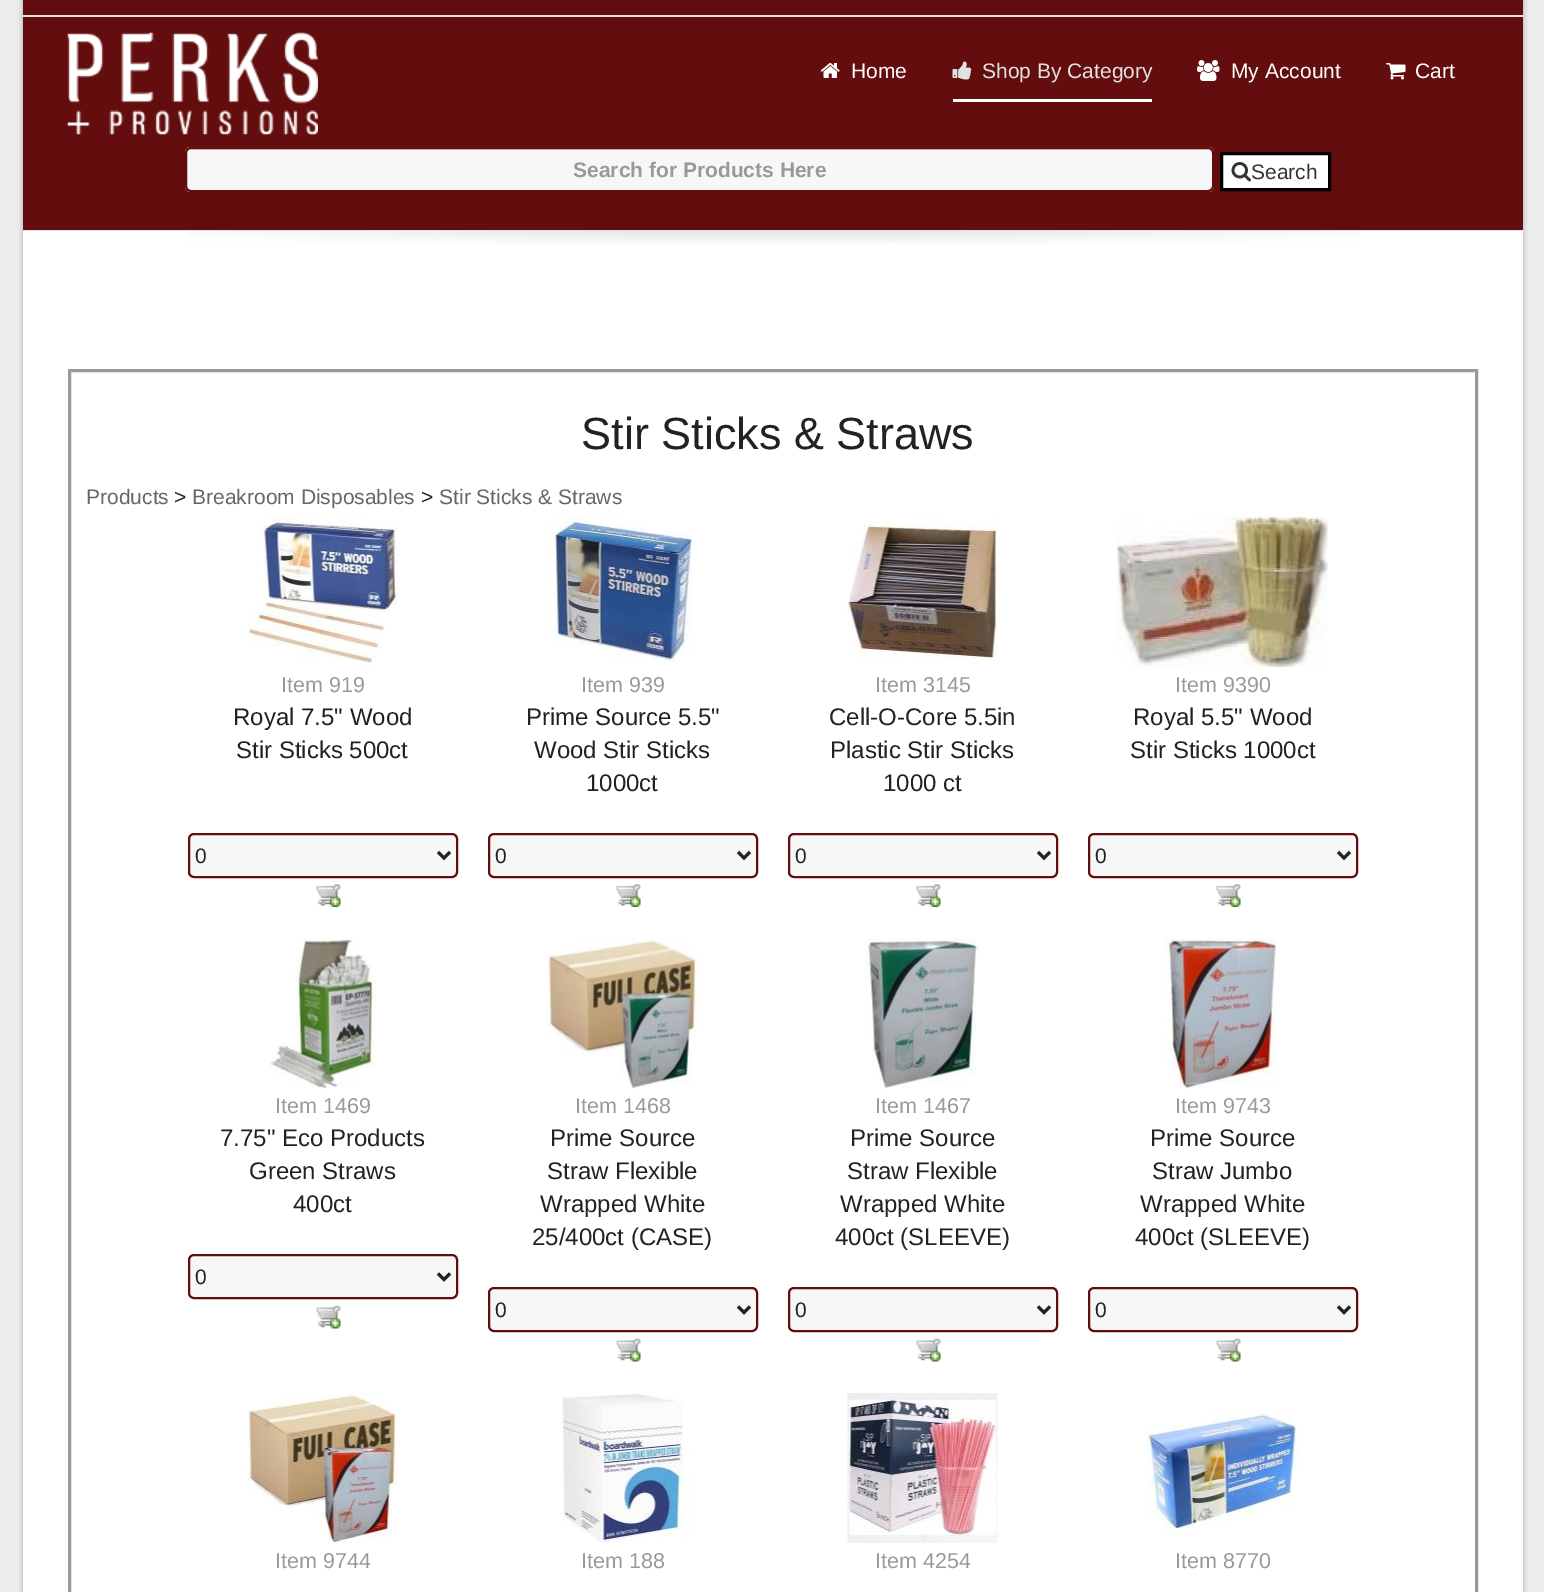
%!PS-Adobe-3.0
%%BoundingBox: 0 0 1544 1592
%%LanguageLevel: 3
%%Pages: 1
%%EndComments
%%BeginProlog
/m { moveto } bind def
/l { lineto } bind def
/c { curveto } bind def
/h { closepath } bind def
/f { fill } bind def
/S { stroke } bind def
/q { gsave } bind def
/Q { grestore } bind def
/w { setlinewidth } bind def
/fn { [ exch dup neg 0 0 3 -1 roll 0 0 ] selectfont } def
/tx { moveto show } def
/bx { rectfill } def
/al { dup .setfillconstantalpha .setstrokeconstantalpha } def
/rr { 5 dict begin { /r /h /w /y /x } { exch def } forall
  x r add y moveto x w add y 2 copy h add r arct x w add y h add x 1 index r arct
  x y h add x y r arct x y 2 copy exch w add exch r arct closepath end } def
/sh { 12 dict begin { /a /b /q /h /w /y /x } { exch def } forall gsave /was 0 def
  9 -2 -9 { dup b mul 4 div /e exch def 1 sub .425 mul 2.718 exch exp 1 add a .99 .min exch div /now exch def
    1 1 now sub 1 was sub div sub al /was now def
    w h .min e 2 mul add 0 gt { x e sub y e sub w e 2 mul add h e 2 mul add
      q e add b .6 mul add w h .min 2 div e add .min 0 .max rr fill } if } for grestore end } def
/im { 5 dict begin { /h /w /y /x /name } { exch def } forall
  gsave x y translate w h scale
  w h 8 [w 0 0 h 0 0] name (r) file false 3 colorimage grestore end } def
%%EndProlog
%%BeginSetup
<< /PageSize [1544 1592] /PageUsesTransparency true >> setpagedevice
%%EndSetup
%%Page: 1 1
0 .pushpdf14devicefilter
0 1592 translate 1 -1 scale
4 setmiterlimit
0.929 setgray
0 0 1544 1592 bx
0 setgray
23 -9 1500 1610 0 3 0.3 sh
0.388 0.051 0.055 setrgbcolor
23 0 1500 15 bx
0.894 setgray
23 15 1500 2 bx
0.388 0.051 0.055 setrgbcolor
23 17 1500 213 bx
0.894 setgray
23 230 1500 1 bx
(image0.raw) 67 32 251 103 im
(image1.raw) 820 63 20 15 im
/LiberationSans-Regular 21 fn
1 setgray
(Home) 851 78 tx
(image2.raw) 952 61 20 19 im
0.886 setgray
(Shop By Category) 982 78 tx
(image3.raw) 1197 60 23 21 im
1 setgray
(My Account) 1231 78 tx
(image4.raw) 1386 63 20 17 im
(Cart) 1415 78 tx
953 99 199 3 bx
0.969 setgray
185 147 1029 45 6 rr f
0.894 setgray
190 150 m 1208 150 l 1210 150 1212 152 1212 154 c 1212 151 1210 149 1207 149 c 191 149 l 188 149 186 151 186 154 c 186 152 188 150 190 150 c h f
0.388 0.051 0.055 setrgbcolor
2 w
186 148 1027 43 5 rr S
/LiberationSans-Bold 21 fn
0.6 setgray
(Search for Products Here) 573 177 tx
1 setgray
1221.5 153.5 m 1329.5 153.5 l 1329.5 189.5 l 1221.5 189.5 l h q f Q
0 setgray
3 w
S
(image5.raw) 1231 162 20 20 im
/LiberationSans-Regular 21 fn
0.2 setgray
(Search) 1251 179 tx
1 setgray
23 231 1500 1361 bx
(image6.raw) 187 230 1172 14 im
0.6 setgray
69.5 370.5 1407 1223 rectstroke
/LiberationSans-Regular 45 fn
0.133 setgray
(Stir Sticks & Straws) 581 449 tx
/LiberationSans-Regular 21 fn
0.4 setgray
(Products) 86 504 tx
0.133 setgray
(>) 174 504 tx
0.4 setgray
(Breakroom Disposables) 192 504 tx
0.133 setgray
(>) 421 504 tx
0.4 setgray
(Stir Sticks & Straws) 439 504 tx
(image7.raw) 247 517 151 150 im
/LiberationSans-Regular 21.5 fn
0.6 setgray
(Item 919) 281 692 tx
/LiberationSans-Regular 24 fn
0.133 setgray
(Royal 7.5" Wood) 233 725 tx
(Stir Sticks 500ct) 236 758 tx
0.969 setgray
189 834 268 43 5 rr q f Q
0.388 0.051 0.055 setrgbcolor
2 w
S
0.133 setgray
3 w
438 852 m 444 858 l 450 852 l S
/LiberationSans-Regular 21 fn
(0) 195 863 tx
(image8.raw) 316 884 25 23 im
(image9.raw) 547 517 145 144 im
/LiberationSans-Regular 21.5 fn
0.6 setgray
(Item 939) 581 692 tx
/LiberationSans-Regular 24 fn
0.133 setgray
(Prime Source 5.5") 526 725 tx
(Wood Stir Sticks) 534 758 tx
(1000ct) 586 791 tx
0.969 setgray
489 834 268 43 5 rr q f Q
0.388 0.051 0.055 setrgbcolor
2 w
S
0.133 setgray
3 w
738 852 m 744 858 l 750 852 l S
/LiberationSans-Regular 21 fn
(0) 495 863 tx
(image10.raw) 616 884 25 23 im
(image11.raw) 847 517 151 144 im
/LiberationSans-Regular 21.5 fn
0.6 setgray
(Item 3145) 875 692 tx
/LiberationSans-Regular 24 fn
0.133 setgray
(Cell-O-Core 5.5in) 829 725 tx
(Plastic Stir Sticks) 830 758 tx
(1000 ct) 883 791 tx
0.969 setgray
789 834 268 43 5 rr q f Q
0.388 0.051 0.055 setrgbcolor
2 w
S
0.133 setgray
3 w
1038 852 m 1044 858 l 1050 852 l S
/LiberationSans-Regular 21 fn
(0) 795 863 tx
(image8.raw) 916 884 25 23 im
(image12.raw) 1117 517 211 150 im
/LiberationSans-Regular 21.5 fn
0.6 setgray
(Item 9390) 1175 692 tx
/LiberationSans-Regular 24 fn
0.133 setgray
(Royal 5.5" Wood) 1133 725 tx
(Stir Sticks 1000ct) 1130 758 tx
0.969 setgray
1089 834 268 43 5 rr q f Q
0.388 0.051 0.055 setrgbcolor
2 w
S
0.133 setgray
3 w
1338 852 m 1344 858 l 1350 852 l S
/LiberationSans-Regular 21 fn
(0) 1095 863 tx
(image8.raw) 1216 884 25 23 im
(image13.raw) 269 938 107 151 im
/LiberationSans-Regular 21.5 fn
0.6 setgray
(Item 1469) 275 1113 tx
/LiberationSans-Regular 24 fn
0.133 setgray
(7.75" Eco Products) 220 1146 tx
(Green Straws) 249 1179 tx
(400ct) 293 1212 tx
0.969 setgray
189 1255 268 43 5 rr q f Q
0.388 0.051 0.055 setrgbcolor
2 w
S
0.133 setgray
3 w
438 1273.5 m 444 1279.5 l 450 1273.5 l S
/LiberationSans-Regular 21 fn
(0) 195 1284 tx
(image14.raw) 316 1305 25 24 im
(image15.raw) 547 938 151 151 im
/LiberationSans-Regular 21.5 fn
0.6 setgray
(Item 1468) 575 1113 tx
/LiberationSans-Regular 24 fn
0.133 setgray
(Prime Source) 550 1146 tx
(Straw Flexible) 547 1179 tx
(Wrapped White) 540 1212 tx
(25/400ct \(CASE\)) 532 1245 tx
0.969 setgray
489 1288 268 43 5 rr q f Q
0.388 0.051 0.055 setrgbcolor
2 w
S
0.133 setgray
3 w
738 1306.5 m 744 1312.5 l 750 1306.5 l S
/LiberationSans-Regular 21 fn
(0) 495 1317 tx
(image16.raw) 616 1338 25 24 im
(image17.raw) 864 938 116 151 im
/LiberationSans-Regular 21.5 fn
0.6 setgray
(Item 1467) 875 1113 tx
/LiberationSans-Regular 24 fn
0.133 setgray
(Prime Source) 850 1146 tx
(Straw Flexible) 847 1179 tx
(Wrapped White) 840 1212 tx
(400ct \(SLEEVE\)) 835 1245 tx
0.969 setgray
789 1288 268 43 5 rr q f Q
0.388 0.051 0.055 setrgbcolor
2 w
S
0.133 setgray
3 w
1038 1306.5 m 1044 1312.5 l 1050 1306.5 l S
/LiberationSans-Regular 21 fn
(0) 795 1317 tx
(image14.raw) 916 1338 25 24 im
(image18.raw) 1164 938 112 151 im
/LiberationSans-Regular 21.5 fn
0.6 setgray
(Item 9743) 1175 1113 tx
/LiberationSans-Regular 24 fn
0.133 setgray
(Prime Source) 1150 1146 tx
(Straw Jumbo) 1152 1179 tx
(Wrapped White) 1140 1212 tx
(400ct \(SLEEVE\)) 1135 1245 tx
0.969 setgray
1089 1288 268 43 5 rr q f Q
0.388 0.051 0.055 setrgbcolor
2 w
S
0.133 setgray
3 w
1338 1306.5 m 1344 1312.5 l 1350 1306.5 l S
/LiberationSans-Regular 21 fn
(0) 1095 1317 tx
(image14.raw) 1216 1338 25 24 im
(image19.raw) 247 1393 151 150 im
/LiberationSans-Regular 21.5 fn
0.6 setgray
(Item 9744) 275 1568 tx
(image20.raw) 562 1393 130 150 im
(Item 188) 581 1568 tx
(image21.raw) 847 1393 151 150 im
(Item 4254) 875 1568 tx
(image22.raw) 1147 1409 151 128 im
(Item 8770) 1175 1568 tx
.poppdf14devicefilter showpage
%%EOF
